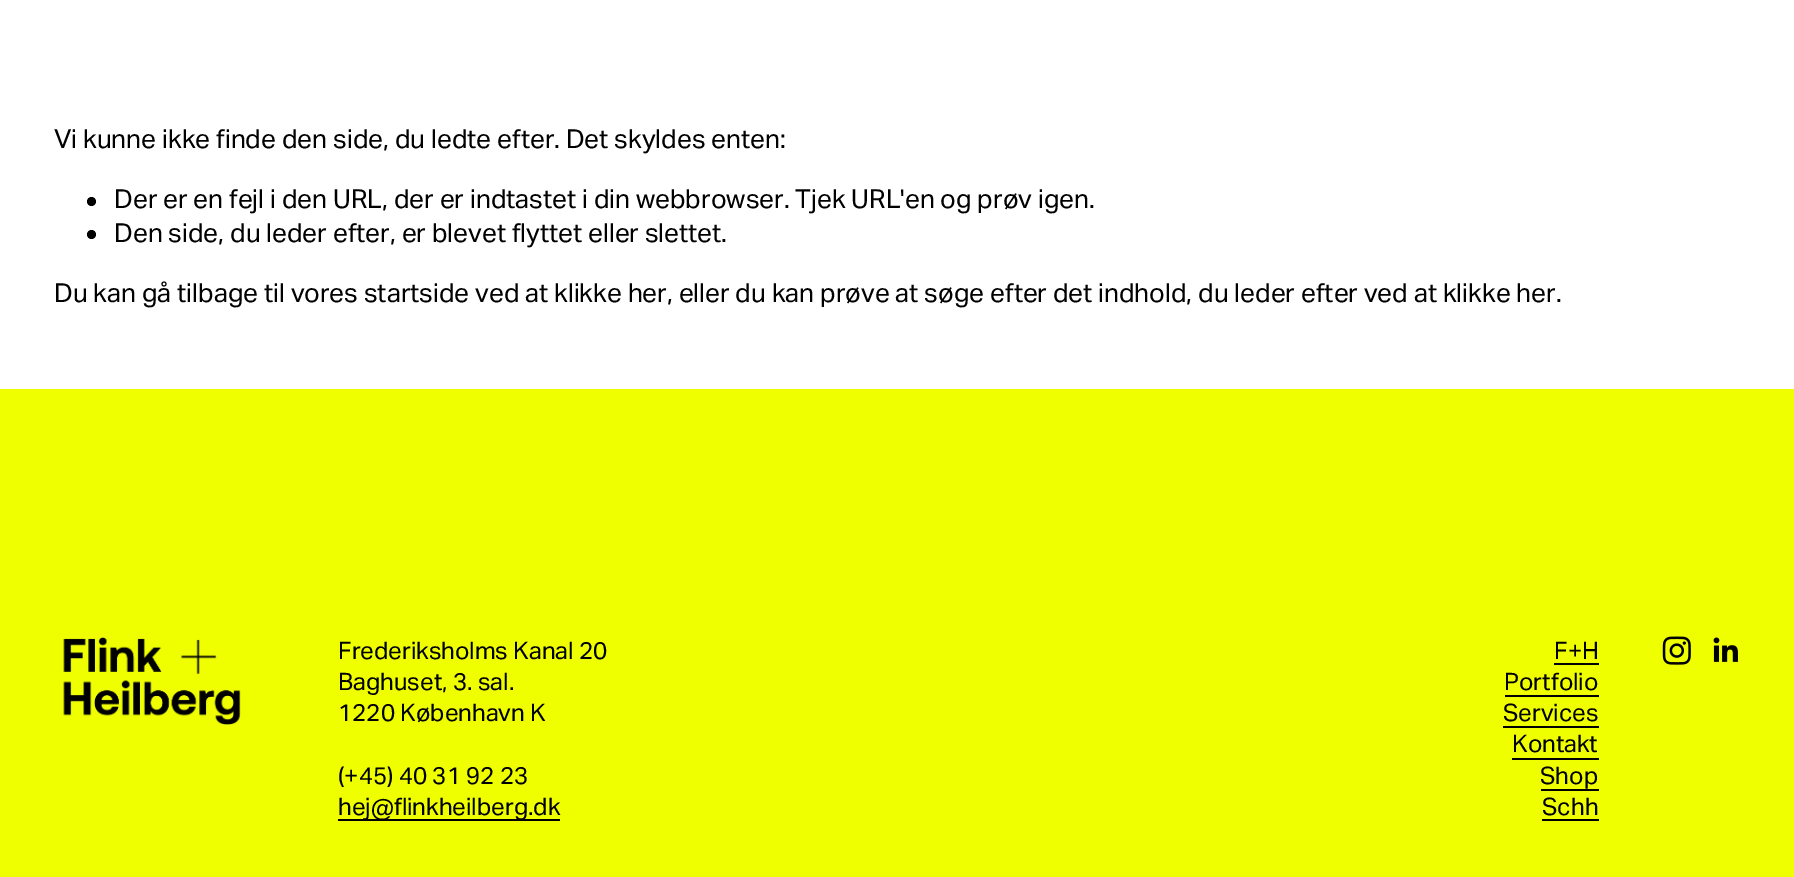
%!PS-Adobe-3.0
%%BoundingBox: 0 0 1794 877
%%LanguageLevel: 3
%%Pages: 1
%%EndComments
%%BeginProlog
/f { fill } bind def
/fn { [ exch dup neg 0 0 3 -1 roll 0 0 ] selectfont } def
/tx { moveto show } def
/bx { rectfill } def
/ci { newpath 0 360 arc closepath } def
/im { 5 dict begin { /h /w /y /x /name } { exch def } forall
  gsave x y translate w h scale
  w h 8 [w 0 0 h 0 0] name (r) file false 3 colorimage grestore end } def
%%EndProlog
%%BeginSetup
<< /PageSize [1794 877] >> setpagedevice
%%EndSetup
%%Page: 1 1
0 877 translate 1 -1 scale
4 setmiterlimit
1 setgray
0 0 1794 877 bx
/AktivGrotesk-Regular 26.15 fn
0 setgray
(Vi kunne ikke finde den side, du ledte efter. Det skyldes enten:) 54 148 tx
91.5 201.5 4.5 ci f
(Der er en fejl i den URL, der er indtastet i din webbrowser. Tjek URL'en og prøv igen.) 114 208 tx
91.5 234.5 4.5 ci f
(Den side, du leder efter, er blevet flyttet eller slettet.) 114 242 tx
(Du kan gå tilbage til vores startside ved at) 54 302 tx
(klikke her, eller du kan prøve at søge efter det) 554 302 tx
(indhold, du leder efter ved at klikke her.) 1098 302 tx
0.937 1 0 setrgbcolor
0 389 1794 488 bx
(image0.raw) 63 637 178 88 im
/AktivGrotesk-Regular 24 fn
0 setgray
(Frederiksholms Kanal 20) 338 659 tx
(Baghuset, 3. sal.) 338 690 tx
(1220 København K) 338 721 tx
(\(+45\) 40 31 92 23) 338 784 tx
338 819 222 2 bx
(hej@flinkheilberg.dk) 338 815 tx
(F+H) 1554 659 tx
1554 663 45 2 bx
(Portfolio) 1504 690 tx
1505 695 94 2 bx
(Services) 1503 721 tx
1503 726 96 2 bx
(Kontakt) 1512 752 tx
1512 758 87 2 bx
(Shop) 1540 784 tx
1541 789 58 2 bx
(Schh) 1542 815 tx
1542 819 57 2 bx
(image1.raw) 1662 636 29 29 im
(image2.raw) 1713 637 25 25 im
showpage
%%EOF
